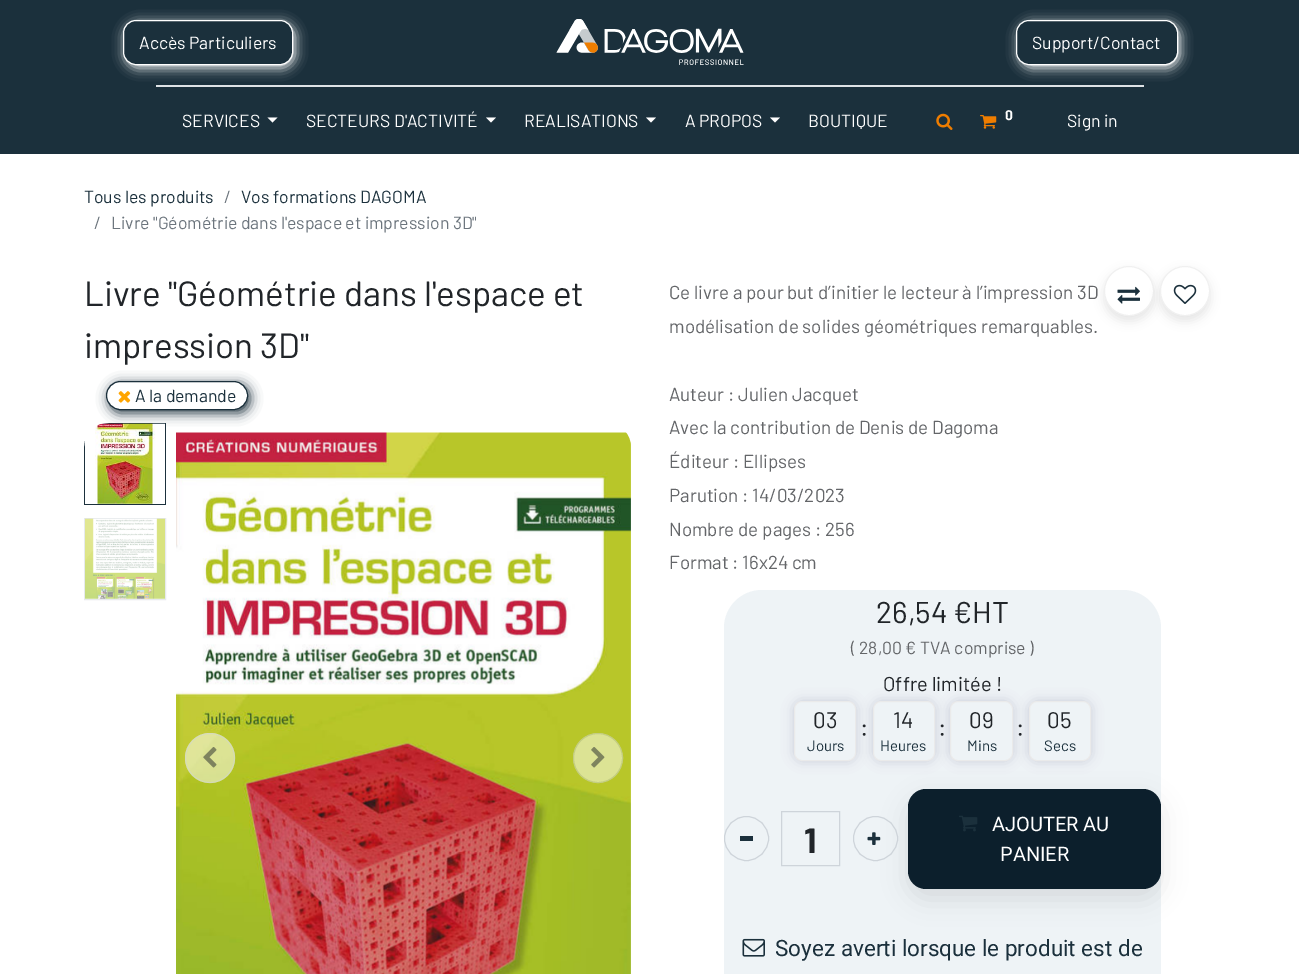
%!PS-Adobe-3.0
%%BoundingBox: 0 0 1299 974
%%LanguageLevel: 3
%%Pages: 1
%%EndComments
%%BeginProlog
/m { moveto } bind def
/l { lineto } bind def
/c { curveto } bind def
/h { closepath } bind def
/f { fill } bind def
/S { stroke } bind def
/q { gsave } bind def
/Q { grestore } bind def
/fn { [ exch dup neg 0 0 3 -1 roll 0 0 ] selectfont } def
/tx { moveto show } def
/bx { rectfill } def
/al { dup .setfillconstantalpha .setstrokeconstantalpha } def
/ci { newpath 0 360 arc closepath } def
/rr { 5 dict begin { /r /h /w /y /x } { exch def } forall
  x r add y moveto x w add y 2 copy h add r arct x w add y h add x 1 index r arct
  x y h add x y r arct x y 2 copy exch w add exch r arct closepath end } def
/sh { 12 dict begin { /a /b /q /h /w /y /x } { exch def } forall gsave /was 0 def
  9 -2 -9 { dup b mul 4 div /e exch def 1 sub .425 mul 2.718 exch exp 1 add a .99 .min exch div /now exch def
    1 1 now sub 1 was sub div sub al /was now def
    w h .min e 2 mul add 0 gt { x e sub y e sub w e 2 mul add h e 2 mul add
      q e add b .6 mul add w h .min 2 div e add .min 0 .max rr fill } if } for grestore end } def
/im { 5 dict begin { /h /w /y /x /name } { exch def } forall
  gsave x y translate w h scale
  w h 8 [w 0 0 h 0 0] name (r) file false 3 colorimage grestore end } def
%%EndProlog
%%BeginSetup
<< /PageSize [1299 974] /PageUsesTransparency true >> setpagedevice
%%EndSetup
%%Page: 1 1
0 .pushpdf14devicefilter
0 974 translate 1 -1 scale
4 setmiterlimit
1 setgray
0 0 1299 974 bx
0.106 0.188 0.235 setrgbcolor
0 0 1299 154 bx
q
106 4 m 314 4 l 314 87 l 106 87 l h 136 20 m 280 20 l 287 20 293 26 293 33 c 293 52 l 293 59 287 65 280 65 c 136 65 l 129 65 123 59 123 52 c 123 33 l 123 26 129 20 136 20 c h eoclip newpath
1 setgray
125 23 170 45 13 6 1 sh
Q
1 setgray
123.5 20.5 169 44 12.5 rr S
/Barlow-Regular 17.5 fn
(Accès Particuliers) 139 49 tx
(image0.raw) 556 19 188 46 im
q
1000 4 m 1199 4 l 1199 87 l 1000 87 l h 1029 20 m 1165 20 l 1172 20 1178 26 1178 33 c 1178 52 l 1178 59 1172 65 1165 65 c 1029 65 l 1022 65 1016 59 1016 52 c 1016 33 l 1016 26 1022 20 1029 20 c h eoclip newpath
1019 23 161 45 13 6 1 sh
Q
1016.5 20.5 161 44 12.5 rr S
(Support/Contact) 1032 49 tx
0.871 0.886 0.902 setrgbcolor
156 85 988 2 bx
1 setgray
(SERVICES) 182 127 tx
267.5 117.5 m 277.5 117.5 l 272.5 122.5 l h f
(SECTEURS D'ACTIVITÉ) 306 127 tx
486 117.5 m 496 117.5 l 491 122.5 l h f
(REALISATIONS) 524 127 tx
646 117.5 m 656 117.5 l 651 122.5 l h f
(A PROPOS) 685 127 tx
770 117.5 m 780 117.5 l 775 122.5 l h f
(BOUTIQUE) 808 127 tx
(image1.raw) 936 113 17 17 im
(image2.raw) 980 115 17 14 im
/Barlow-Bold 14 fn
(0) 1005 120 tx
/Barlow-Regular 17.5 fn
(Sign in) 1067 127 tx
0.106 0.188 0.235 setrgbcolor
(Tous les produits) 84 203 tx
0.424 0.459 0.49 setrgbcolor
(/) 224 203 tx
0.106 0.188 0.235 setrgbcolor
(Vos formations DAGOMA) 241 203 tx
0.424 0.459 0.49 setrgbcolor
(/) 94 229 tx
(Livre "Géométrie dans l'espace et impression 3D") 111 229 tx
/Barlow-Regular 35 fn
0.129 0.145 0.161 setrgbcolor
(Livre "Géométrie dans l'espace et) 84 306 tx
(impression 3D") 84 358 tx
q
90 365 m 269 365 l 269 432 l 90 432 l h 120.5 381 m 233.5 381 l 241.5 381 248 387.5 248 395.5 c 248 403.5 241.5 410 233.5 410 c 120.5 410 l 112.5 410 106 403.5 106 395.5 c 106 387.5 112.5 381 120.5 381 c h eoclip newpath
0.106 0.188 0.235 setrgbcolor
109 384 141 29 14.5 6 1 sh
Q
0.106 0.188 0.235 setrgbcolor
106.5 381.5 141 28 14 rr S
(image3.raw) 118 391 13 12 im
/Barlow-Regular 17.5 fn
(A la demande) 135 402 tx
q
109 423 m 606 423 l 620 423 631 434 631 448 c 631 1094 l 84 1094 l 84 448 l 84 434 95 423 109 423 c h clip newpath
1 setgray
85 424 80 80 bx
Q
109 423 m 102 424 l 165 424 l 165 504 l 85 504 l 85 441 l 84 448 l 84 505 l 166 505 l 166 423 l h f
(image4.raw) 95 423 70 81 im
0.906 0.918 0.929 setrgbcolor
84.5 518.5 81 81 rectstroke
(image5.raw) 85 518 80 81 im
(image6.raw) 176 432 455 542 im
0.5 al
1 setgray
210 758 25 ci f
0.808 0.831 0.855 setrgbcolor
210 758 24.5 ci S
1 al
(image7.raw) 203 747 14 21 im
0.863 0.89 0.58 setrgbcolor
598 758 24.5 ci q f Q
0.765 0.804 0.51 setrgbcolor
S
(image8.raw) 591 747 14 21 im
/Barlow-Regular 18.75 fn
0.392 0.4 0.412 setrgbcolor
(Ce livre a pour but d’initier le lecteur à l’impression 3D) 669 299 tx
(modélisation de solides géométriques remarquables.) 669 333 tx
(Auteur : Julien Jacquet) 669 401 tx
(Avec la contribution de Denis de Dagoma) 669 434 tx
(Éditeur : Ellipses) 669 468 tx
(Parution : 14/03/2023) 669 502 tx
(Nombre de pages : 256) 669 536 tx
(Format : 16x24 cm) 669 569 tx
0.933 0.953 0.965 setrgbcolor
762 590 m 1123 590 l 1144 590 1161 607 1161 628 c 1161 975 l 724 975 l 724 628 l 724 607 741 590 762 590 c h f
0 setgray
1104 271 50 50 25 5 0.1 sh
1 setgray
1129 291 24.5 ci q f Q
0.941 setgray
S
(image9.raw) 1117 286 23 18 im
0 setgray
1160 271 50 50 25 5 0.1 sh
1 setgray
1185 291 24.5 ci q f Q
0.941 setgray
S
(image10.raw) 1173 284 24 20 im
/Barlow-Regular 30 fn
0.129 0.145 0.161 setrgbcolor
(26,54 €HT) 876 623 tx
/Barlow-Regular 17.5 fn
0.392 0.4 0.412 setrgbcolor
(\( 28,00 € TVA comprise \)) 851 654 tx
/Barlow-Regular 20 fn
0.129 0.145 0.161 setrgbcolor
(Offre limitée !) 883 691 tx
q
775 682 m 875 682 l 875 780 l 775 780 l h 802 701 m 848 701 l 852.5 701 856 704.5 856 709 c 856 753 l 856 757.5 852.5 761 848 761 c 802 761 l 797.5 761 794 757.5 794 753 c 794 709 l 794 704.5 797.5 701 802 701 c h eoclip newpath
0.196 0.196 0.365 setrgbcolor
794 701 62 60 8 6 0.2 sh
Q
0.918 setgray
794.5 701.5 61 59 7.5 rr S
/Barlow-Regular 22.5 fn
0.129 0.145 0.161 setrgbcolor
(03) 813 728 tx
/Barlow-Regular 15 fn
0.106 0.188 0.235 setrgbcolor
(Jours) 807 751 tx
/Barlow-Regular 25 fn
0.129 0.145 0.161 setrgbcolor
(:) 860 736 tx
q
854 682 m 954 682 l 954 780 l 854 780 l h 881 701 m 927 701 l 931.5 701 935 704.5 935 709 c 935 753 l 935 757.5 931.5 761 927 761 c 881 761 l 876.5 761 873 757.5 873 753 c 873 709 l 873 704.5 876.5 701 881 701 c h eoclip newpath
0.196 0.196 0.365 setrgbcolor
873 701 62 60 8 6 0.2 sh
Q
0.918 setgray
873.5 701.5 61 59 7.5 rr S
/Barlow-Regular 22.5 fn
0.129 0.145 0.161 setrgbcolor
(14) 893 728 tx
/Barlow-Regular 15 fn
0.106 0.188 0.235 setrgbcolor
(Heures) 880 751 tx
/Barlow-Regular 25 fn
0.129 0.145 0.161 setrgbcolor
(:) 938 736 tx
q
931 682 m 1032 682 l 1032 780 l 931 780 l h 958 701 m 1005 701 l 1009.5 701 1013 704.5 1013 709 c 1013 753 l 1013 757.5 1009.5 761 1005 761 c 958 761 l 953.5 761 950 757.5 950 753 c 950 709 l 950 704.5 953.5 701 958 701 c h eoclip newpath
0.196 0.196 0.365 setrgbcolor
950 701 63 60 8 6 0.2 sh
Q
0.918 setgray
950.5 701.5 62 59 7.5 rr S
/Barlow-Regular 22.5 fn
0.129 0.145 0.161 setrgbcolor
(09) 969 728 tx
/Barlow-Regular 15 fn
0.106 0.188 0.235 setrgbcolor
(Mins) 967 751 tx
/Barlow-Regular 25 fn
0.129 0.145 0.161 setrgbcolor
(:) 1016 736 tx
q
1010 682 m 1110 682 l 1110 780 l 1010 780 l h 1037 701 m 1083 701 l 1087.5 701 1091 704.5 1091 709 c 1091 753 l 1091 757.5 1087.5 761 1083 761 c 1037 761 l 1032.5 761 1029 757.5 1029 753 c 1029 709 l 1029 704.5 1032.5 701 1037 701 c h eoclip newpath
0.196 0.196 0.365 setrgbcolor
1029 701 62 60 8 6 0.2 sh
Q
0.918 setgray
1029.5 701.5 61 59 7.5 rr S
/Barlow-Regular 22.5 fn
0.129 0.145 0.161 setrgbcolor
(05) 1047 728 tx
/Barlow-Regular 15 fn
0.106 0.188 0.235 setrgbcolor
(Secs) 1044 751 tx
0.808 0.831 0.855 setrgbcolor
746.5 838.5 22 ci S
0.106 0.188 0.235 setrgbcolor
740 836 13 5 bx
0.808 0.831 0.855 setrgbcolor
781.5 811.5 58 54 rectstroke
/Barlow-Bold 35 fn
0.129 0.145 0.161 setrgbcolor
(1) 804 853 tx
0 setgray
908 799 253 100 18 12.5 0.1 sh
0.808 0.831 0.855 setrgbcolor
875.5 838.5 22 ci S
(image11.raw) 867 832 14 13 im
0.047 0.122 0.173 setrgbcolor
908 789 253 100 18 rr f
(image12.raw) 959 815 19 17 im
/Roboto-Regular 20 fn
1 setgray
(AJOUTER AU) 992 831 tx
(PANIER) 1000 861 tx
(image13.raw) 742 938 23 19 im
/Roboto-Regular 22.5 fn
0.106 0.188 0.235 setrgbcolor
(Soyez averti lorsque le produit est de) 775 956 tx
.poppdf14devicefilter showpage
%%EOF
